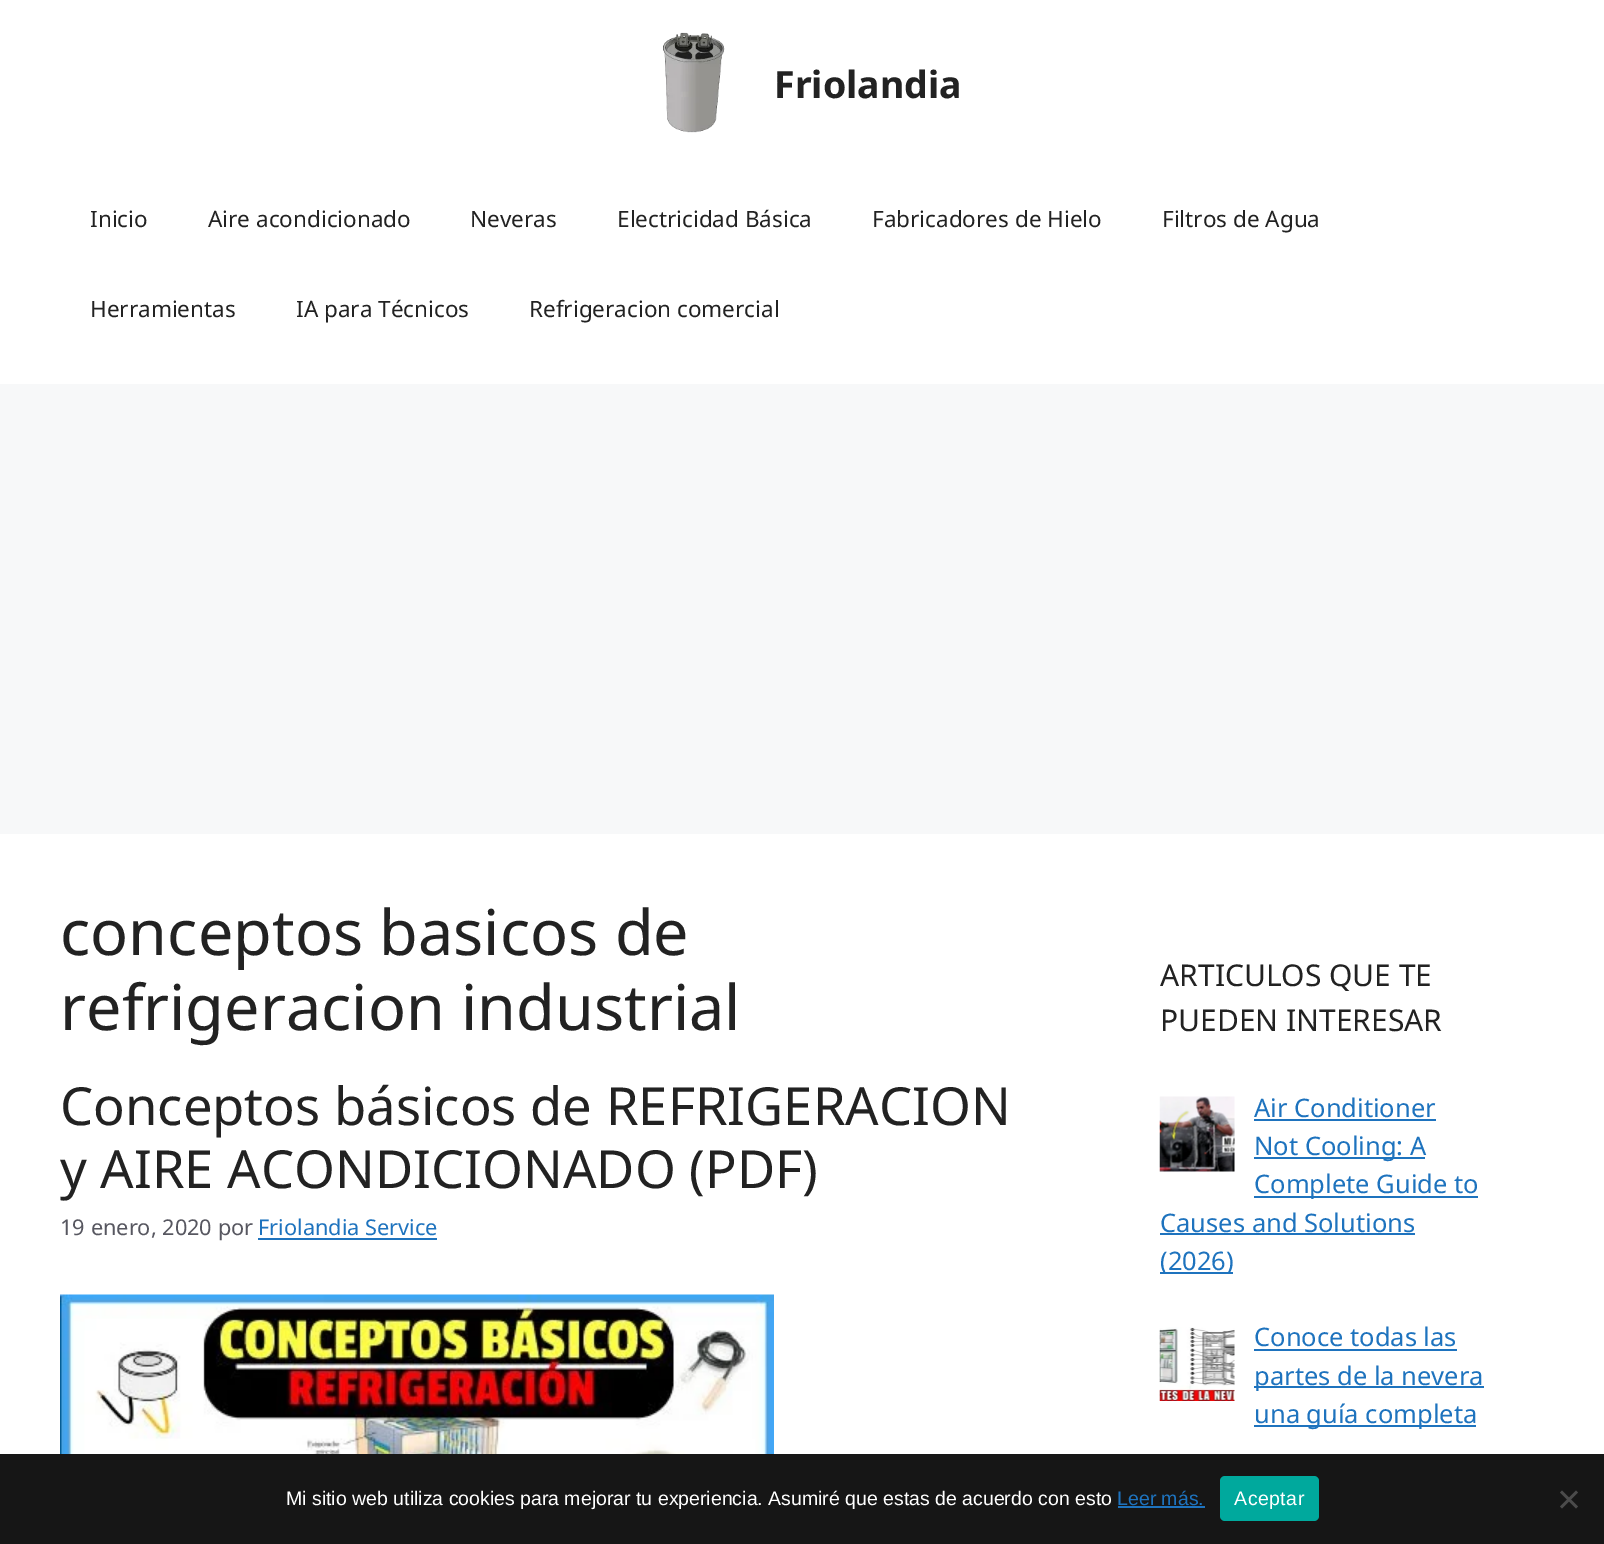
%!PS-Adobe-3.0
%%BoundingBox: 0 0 1604 1544
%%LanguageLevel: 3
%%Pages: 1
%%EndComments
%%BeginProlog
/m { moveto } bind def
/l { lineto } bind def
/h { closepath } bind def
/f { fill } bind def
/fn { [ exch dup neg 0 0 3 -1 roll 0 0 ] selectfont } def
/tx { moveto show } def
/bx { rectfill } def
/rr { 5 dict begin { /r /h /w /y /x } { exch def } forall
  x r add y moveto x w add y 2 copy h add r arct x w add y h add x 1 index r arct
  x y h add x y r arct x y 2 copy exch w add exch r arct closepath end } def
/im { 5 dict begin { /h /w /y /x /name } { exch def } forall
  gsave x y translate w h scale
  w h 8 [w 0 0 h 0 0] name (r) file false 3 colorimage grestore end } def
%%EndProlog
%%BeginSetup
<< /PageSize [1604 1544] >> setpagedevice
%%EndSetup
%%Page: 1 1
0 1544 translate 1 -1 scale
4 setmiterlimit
0.969 0.973 0.976 setrgbcolor
0 0 1604 1544 bx
1 setgray
0 0 1604 384 bx
(image0.raw) 663 32 62 101 im
/NotoSans-Bold 37.5 fn
0.133 setgray
(Friolandia) 774 98 tx
/NotoSans-Regular 22.5 fn
(Inicio) 90 227 tx
(Aire acondicionado) 208 227 tx
(Neveras) 470 227 tx
(Electricidad Básica) 617 227 tx
(Fabricadores de Hielo) 872 227 tx
(Filtros de Agua) 1162 227 tx
(Herramientas) 90 317 tx
(IA para Técnicos) 296 317 tx
(Refrigeracion comercial) 529 317 tx
1 setgray
0 834 1604 620 bx
/NotoSans-Regular 63 fn
0.133 setgray
(conceptos basicos de) 60 955 tx
(refrigeracion industrial) 60 1030 tx
/NotoSans-Regular 52.5 fn
(Conceptos básicos de REFRIGERACION) 60 1125 tx
(y AIRE ACONDICIONADO \(PDF\)) 60 1188 tx
/NotoSans-Regular 21.75 fn
0.341 0.341 0.376 setrgbcolor
(19 enero, 2020 por) 60 1235 tx
0.118 0.451 0.745 setrgbcolor
(Friolandia Service) 258 1235 tx
258 1238 179 2 bx
(image1.raw) 60 1294 714 160 im
/NotoSans-Regular 30 fn
0.133 setgray
(ARTICULOS QUE TE) 1160 986 tx
(PUEDEN INTERESAR) 1160 1031 tx
(image2.raw) 1159 1096 76 76 im
/NotoSans-Regular 25.5 fn
0.118 0.451 0.745 setrgbcolor
(Air Conditioner) 1254 1117 tx
1254 1119 182 2 bx
1254 1157 171 2 bx
(Not Cooling: A) 1254 1155 tx
1254 1196 224 2 bx
(Complete Guide to) 1254 1193 tx
(Causes and Solutions) 1160 1232 tx
1160 1233 255 2 bx
1160 1272 73 2 bx
(\(2026\)) 1160 1270 tx
(image3.raw) 1159 1327 76 74 im
(Conoce todas las) 1254 1346 tx
1254 1349 203 2 bx
1254 1386 230 2 bx
(partes de la nevera) 1254 1385 tx
1254 1425 222 2 bx
(una guía completa) 1254 1423 tx
0.086 setgray
0 1454 1604 90 bx
/LiberationSans-Regular 19.5 fn
1 setgray
(Mi sitio web utiliza cookies para mejorar tu experiencia. Asumiré que estas de acuerdo con esto) 286 1505 tx
0.118 0.451 0.745 setrgbcolor
(Leer más.) 1117 1505 tx
1118 1506 87 2 bx
0 0.663 0.616 setrgbcolor
1220 1476 99 45 5 rr f
1 setgray
1234 1505 m 0.5 0 (Aceptar) ashow
0.294 setgray
1576 1490.5 m 1578 1492.5 l 1562 1508.5 l 1560 1506.5 l h f
1560 1492.5 m 1562 1490.5 l 1578 1506.5 l 1576 1508.5 l h f
showpage
%%EOF
